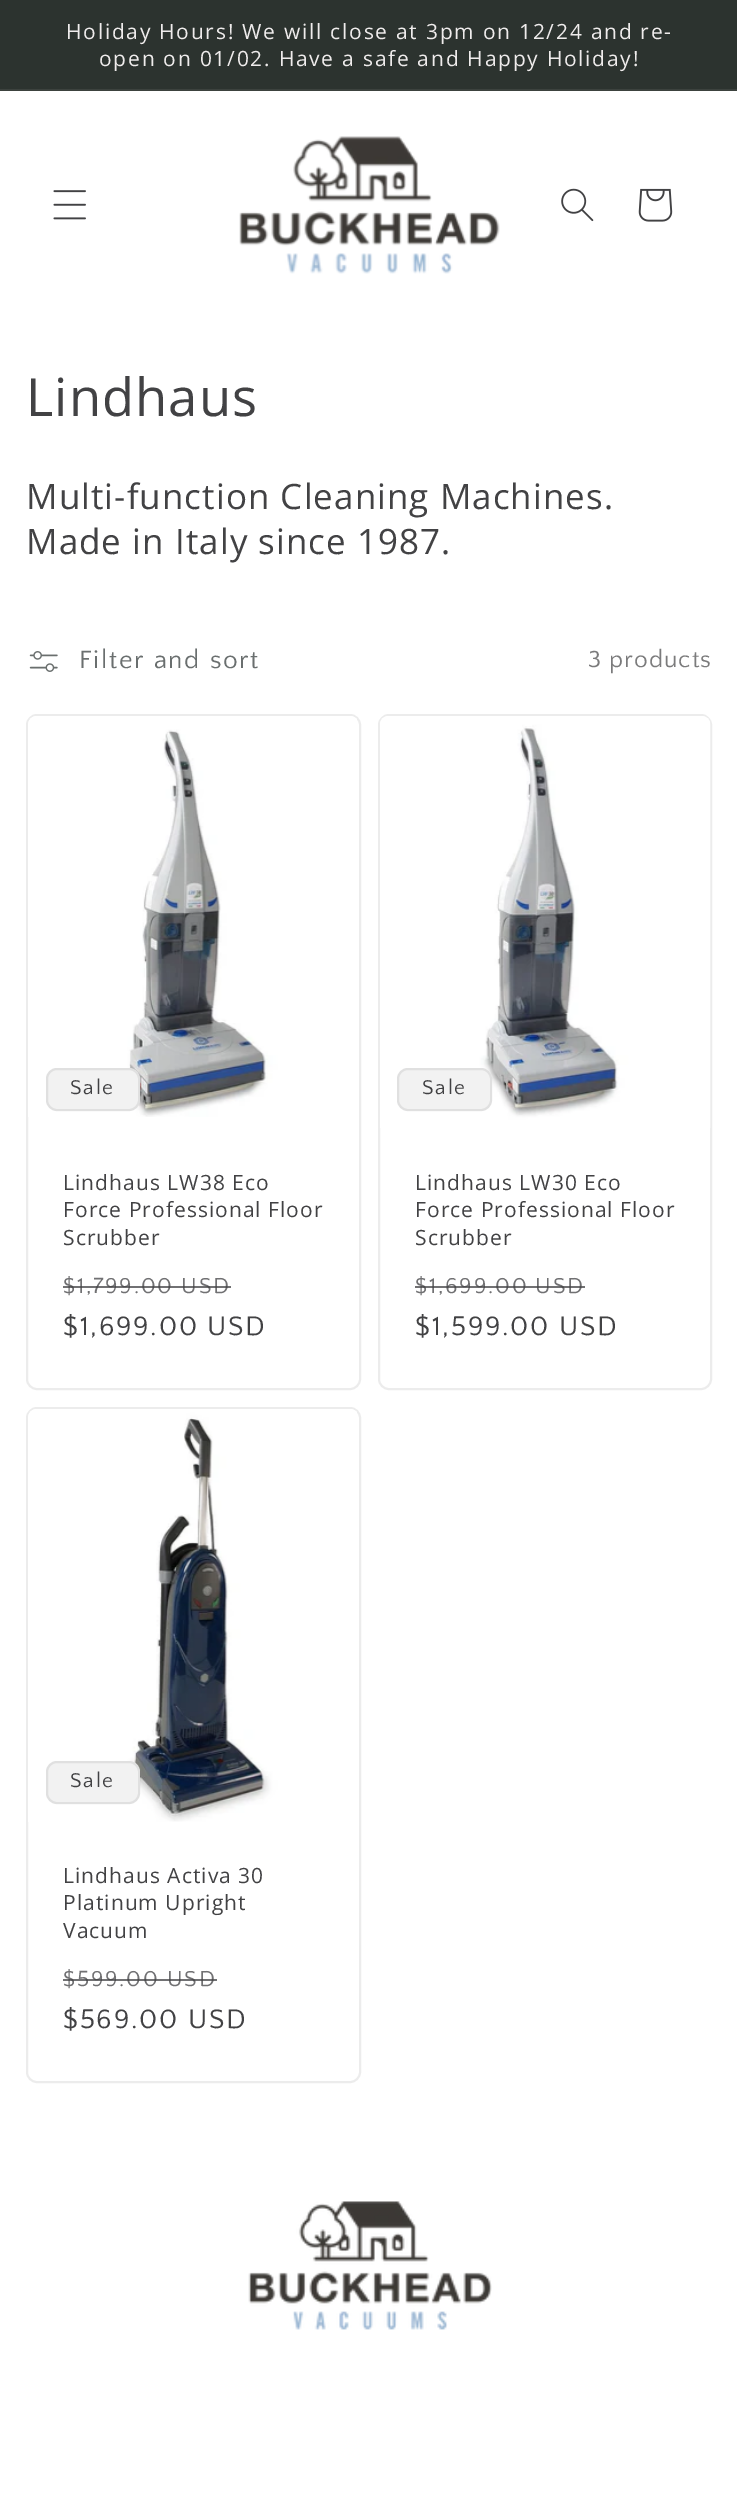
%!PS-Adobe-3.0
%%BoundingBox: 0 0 737 2499
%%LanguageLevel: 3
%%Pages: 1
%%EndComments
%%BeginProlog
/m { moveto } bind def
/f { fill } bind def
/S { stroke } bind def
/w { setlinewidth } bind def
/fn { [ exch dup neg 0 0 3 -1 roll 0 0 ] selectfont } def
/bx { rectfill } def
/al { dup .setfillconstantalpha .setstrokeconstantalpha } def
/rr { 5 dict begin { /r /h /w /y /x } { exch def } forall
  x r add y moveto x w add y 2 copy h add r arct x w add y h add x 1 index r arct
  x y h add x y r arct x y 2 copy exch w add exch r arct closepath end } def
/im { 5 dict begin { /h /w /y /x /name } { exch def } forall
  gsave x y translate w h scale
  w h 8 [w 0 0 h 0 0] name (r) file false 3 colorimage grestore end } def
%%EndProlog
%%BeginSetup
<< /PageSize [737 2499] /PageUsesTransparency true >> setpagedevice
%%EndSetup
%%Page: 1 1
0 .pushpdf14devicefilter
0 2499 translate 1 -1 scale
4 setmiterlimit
1 setgray
0 0 737 2499 bx
0.173 0.2 0.184 setrgbcolor
0 0 737 89 bx
0.235 0.259 0.243 setrgbcolor
0 89 737 2 bx
/OpenSans-Regular 21 fn
0.937 0.925 0.925 setrgbcolor
66 39 m 1.75 0 (Holiday Hours! We will close at 3pm on 12/24 and re-) ashow
99 66 m 1.75 0 (open on 01/02. Have a safe and Happy Holiday!) ashow
(image0.raw) 53 190 33 30 im
(image1.raw) 239 136 261 138 im
(image2.raw) 561 188 33 34 im
(image3.raw) 638 188 35 34 im
/OpenSans-Regular 52.5 fn
0.259 0.259 0.267 setrgbcolor
26 416 m 1.05 0 (Lindhaus) ashow
/OpenSans-Regular 35 fn
26 509 m 1.05 0 (Multi-function Cleaning Machines.) ashow
26 554 m 1.05 0 (Made in Italy since 1987.) ashow
(image4.raw) 29 651 29 21 im
/QuattrocentoSans-Regular 26.25 fn
0.416 0.435 0.435 setrgbcolor
79 668 m 1.75 0 (Filter and sort) ashow
/QuattrocentoSans-Regular 24.5 fn
0.482 0.482 0.486 setrgbcolor
588 667 m 1.05 0 (3 products) ashow
0.925 setgray
2 w
27 715 333 674 10 rr S
(image5.raw) 28 716 329 401 im
0.949 setgray
46 1068 94 43 11 rr f
0.1 al
0.259 0.259 0.267 setrgbcolor
47 1069 92 41 10 rr S
/QuattrocentoSans-Regular 21 fn
1 al
70 1094 m 1.75 0 (Sale) ashow
/OpenSans-Regular 21 fn
63 1190 m 1.05 0 (Lindhaus LW38 Eco) ashow
63 1217 m 1.05 0 (Force Professional Floor) ashow
63 1245 m 1.05 0 (Scrubber) ashow
/QuattrocentoSans-Regular 22.75 fn
0.443 0.443 0.451 setrgbcolor
63 1293 m 1.75 0 ($1,799.00 USD) ashow
0.75 al
0.259 0.259 0.267 setrgbcolor
63 1286 168 2 bx
/QuattrocentoSans-Regular 28 fn
1 al
63 1335 m 1.75 0 ($1,699.00 USD) ashow
0.925 setgray
379 715 332 674 10 rr S
(image6.raw) 380 716 331 412 im
0.949 setgray
397 1068 95 43 11 rr f
0.1 al
0.259 0.259 0.267 setrgbcolor
398 1069 93 41 10 rr S
/QuattrocentoSans-Regular 21 fn
1 al
422 1094 m 1.75 0 (Sale) ashow
/OpenSans-Regular 21 fn
415 1190 m 1.05 0 (Lindhaus LW30 Eco) ashow
415 1217 m 1.05 0 (Force Professional Floor) ashow
415 1245 m 1.05 0 (Scrubber) ashow
/QuattrocentoSans-Regular 22.75 fn
0.443 0.443 0.451 setrgbcolor
415 1293 m 1.75 0 ($1,699.00 USD) ashow
0.75 al
0.259 0.259 0.267 setrgbcolor
415 1286 170 2 bx
/QuattrocentoSans-Regular 28 fn
1 al
415 1335 m 1.75 0 ($1,599.00 USD) ashow
0.925 setgray
27 1408 333 674 10 rr S
(image7.raw) 28 1409 329 413 im
0.949 setgray
46 1761 94 43 11 rr f
0.1 al
0.259 0.259 0.267 setrgbcolor
47 1762 92 41 10 rr S
/QuattrocentoSans-Regular 21 fn
1 al
70 1787 m 1.75 0 (Sale) ashow
/OpenSans-Regular 21 fn
63 1883 m 1.05 0 (Lindhaus Activa 30) ashow
63 1910 m 1.05 0 (Platinum Upright) ashow
63 1938 m 1.05 0 (Vacuum) ashow
/QuattrocentoSans-Regular 22.75 fn
0.443 0.443 0.451 setrgbcolor
63 1986 m 1.75 0 ($599.00 USD) ashow
0.75 al
0.259 0.259 0.267 setrgbcolor
63 1979 154 2 bx
/QuattrocentoSans-Regular 28 fn
1 al
63 2028 m 1.75 0 ($569.00 USD) ashow
(image8.raw) 248 2201 244 129 im
.poppdf14devicefilter showpage
%%EOF
